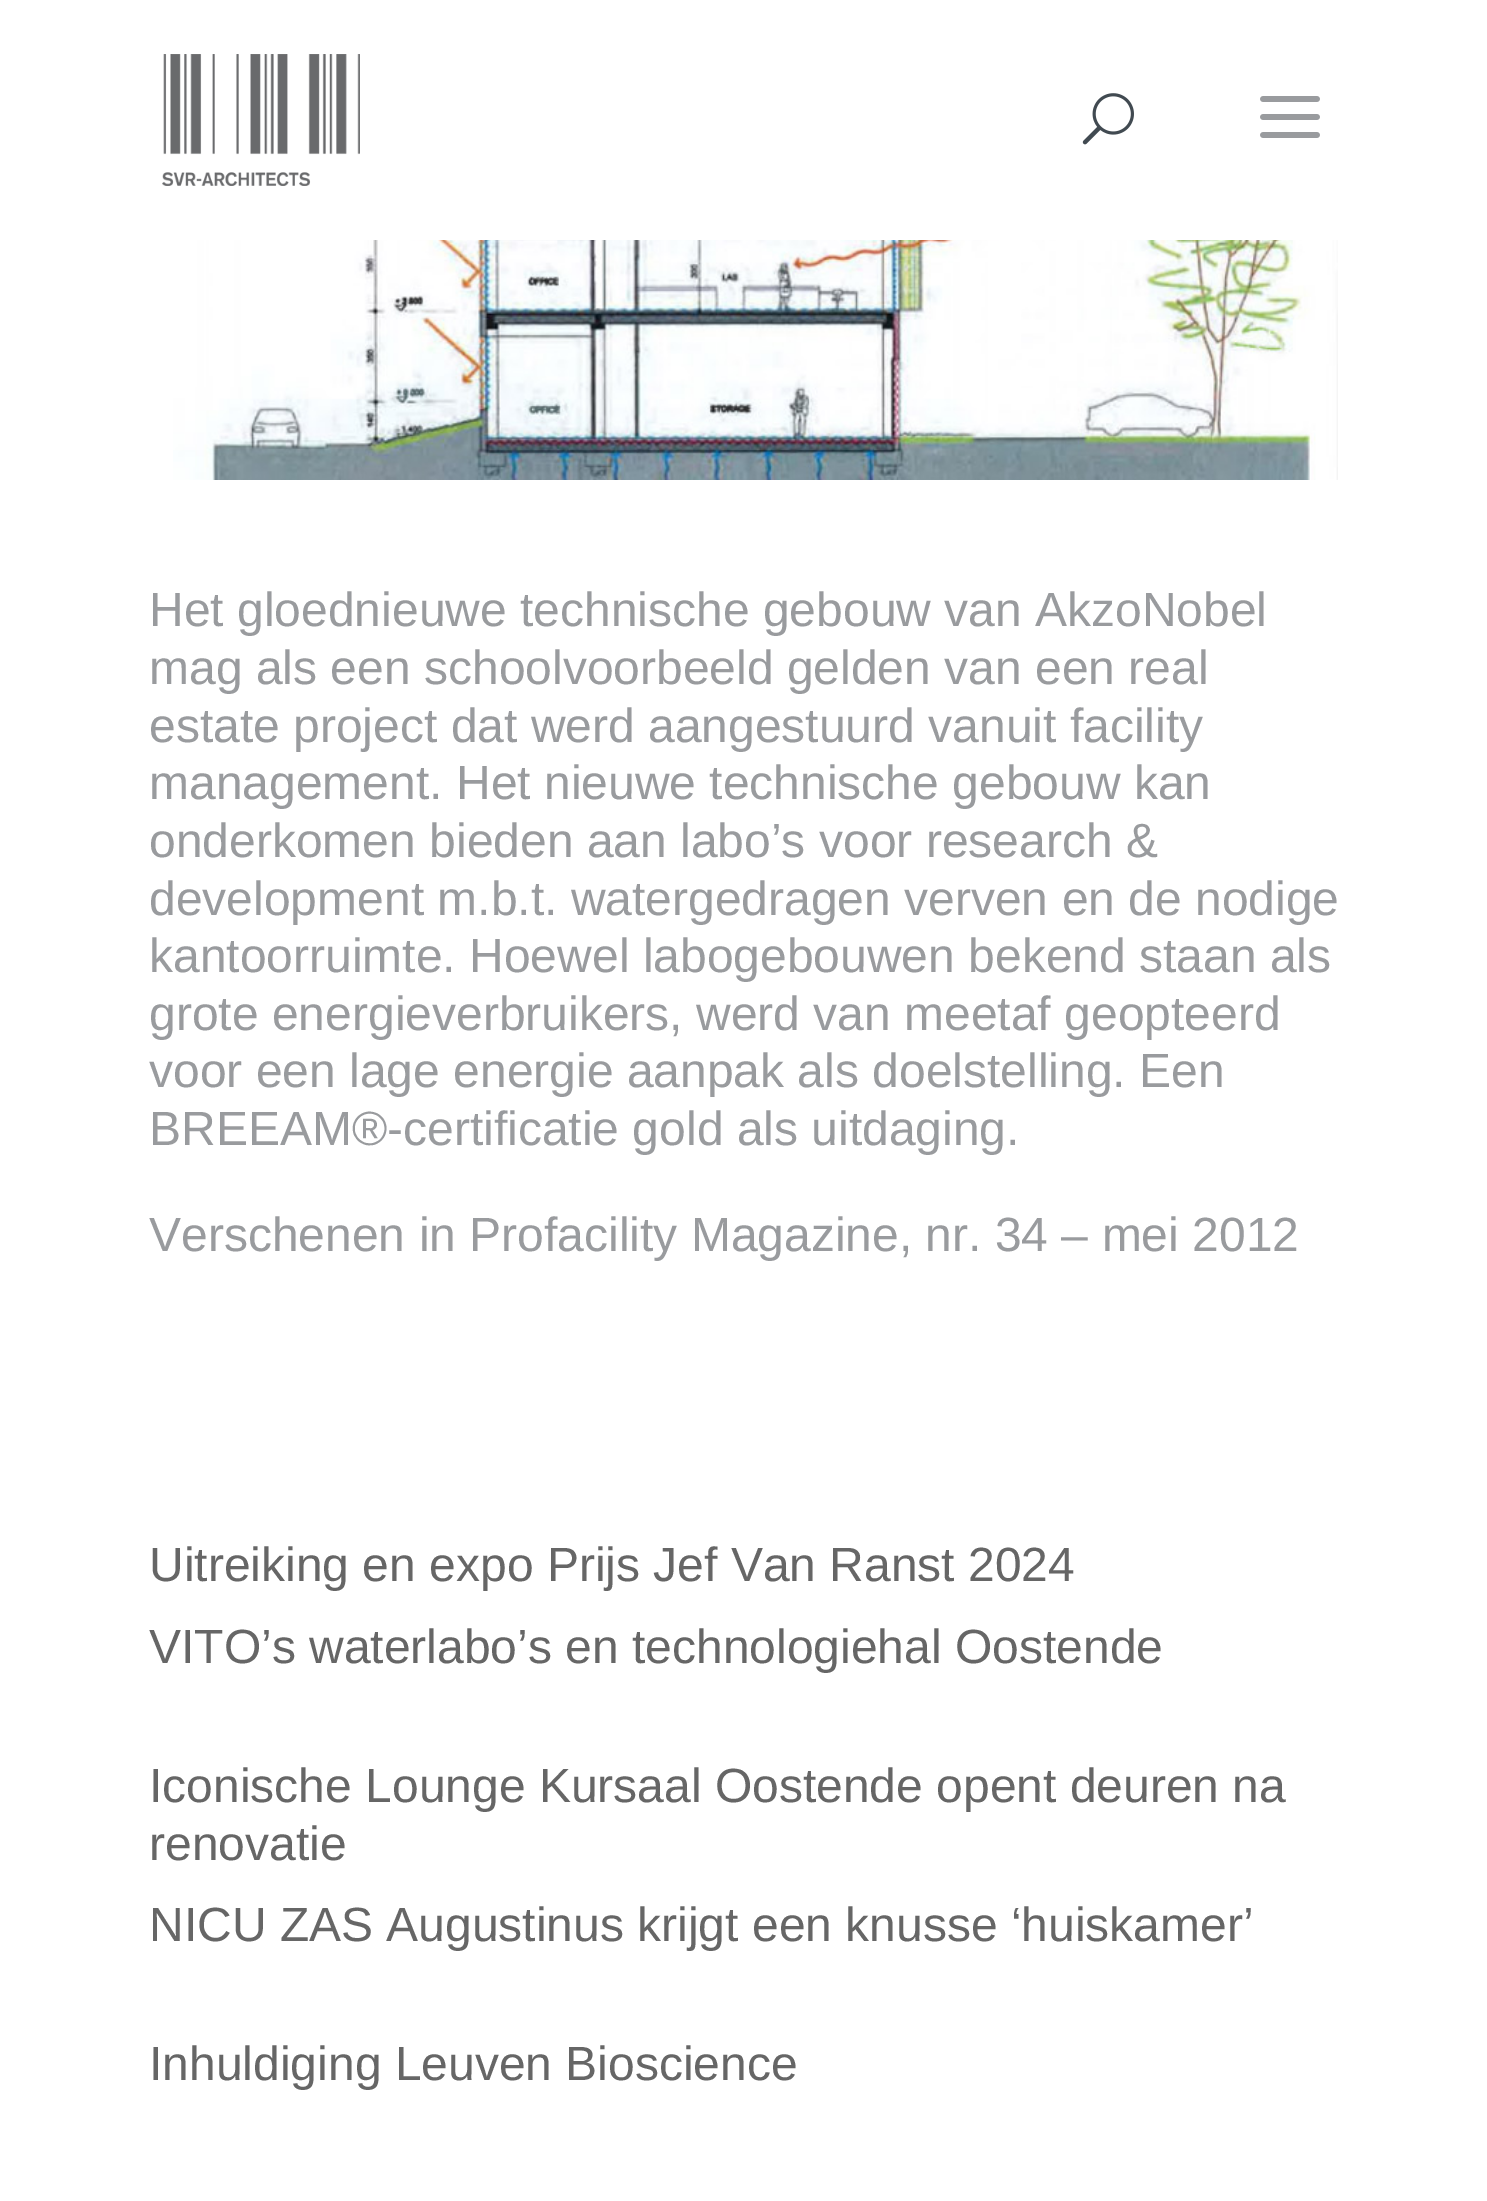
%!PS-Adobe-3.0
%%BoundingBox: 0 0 1487 2201
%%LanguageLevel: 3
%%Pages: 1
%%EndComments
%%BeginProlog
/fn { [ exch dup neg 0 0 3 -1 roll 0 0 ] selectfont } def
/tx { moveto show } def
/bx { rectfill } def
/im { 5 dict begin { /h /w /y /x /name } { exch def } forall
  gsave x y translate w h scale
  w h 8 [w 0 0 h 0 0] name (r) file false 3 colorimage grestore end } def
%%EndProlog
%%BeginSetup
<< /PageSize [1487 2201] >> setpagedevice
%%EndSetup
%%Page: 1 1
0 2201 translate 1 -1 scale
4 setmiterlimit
1 setgray
0 0 1487 2201 bx
(image0.raw) 162 54 198 132 im
(image1.raw) 1082 93 52 52 im
(image2.raw) 1260 96 60 42 im
(image3.raw) 173 240 1165 240 im
/LiberationSans-Regular 48 fn
0.6 0.608 0.62 setrgbcolor
(Het gloednieuwe technische gebouw van AkzoNobel) 149 626 tx
(mag als een schoolvoorbeeld gelden van een real) 149 684 tx
(estate project dat werd aangestuurd vanuit facility) 149 742 tx
(management. Het nieuwe technische gebouw kan) 149 799 tx
(onderkomen bieden aan labo’s voor research &) 149 857 tx
(development m.b.t. watergedragen verven en de nodige) 149 915 tx
(kantoorruimte. Hoewel labogebouwen bekend staan als) 149 972 tx
(grote energieverbruikers, werd van meetaf geopteerd) 149 1030 tx
(voor een lage energie aanpak als doelstelling. Een) 149 1087 tx
(BREEAM®-certificatie gold als uitdaging.) 149 1145 tx
(Verschenen in Profacility Magazine, nr. 34 – mei 2012) 149 1251 tx
0.4 setgray
(Uitreiking en expo Prijs Jef Van Ranst 2024) 149 1581 tx
(VITO’s waterlabo’s en technologiehal Oostende) 149 1663 tx
(Iconische Lounge Kursaal Oostende opent deuren na) 149 1802 tx
(renovatie) 149 1860 tx
(NICU ZAS Augustinus krijgt een knusse ‘huiskamer’) 149 1941 tx
(Inhuldiging Leuven Bioscience) 149 2080 tx
showpage
%%EOF
